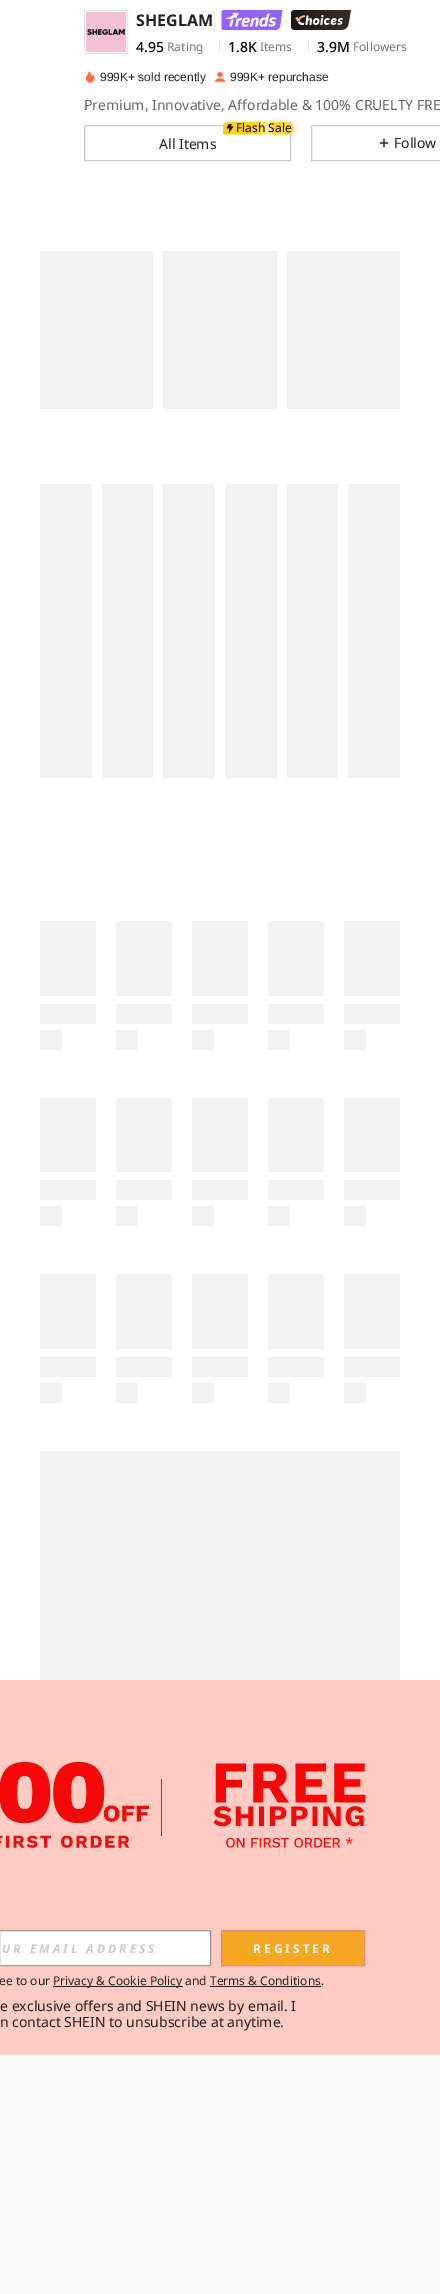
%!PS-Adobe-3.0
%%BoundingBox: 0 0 440 2294
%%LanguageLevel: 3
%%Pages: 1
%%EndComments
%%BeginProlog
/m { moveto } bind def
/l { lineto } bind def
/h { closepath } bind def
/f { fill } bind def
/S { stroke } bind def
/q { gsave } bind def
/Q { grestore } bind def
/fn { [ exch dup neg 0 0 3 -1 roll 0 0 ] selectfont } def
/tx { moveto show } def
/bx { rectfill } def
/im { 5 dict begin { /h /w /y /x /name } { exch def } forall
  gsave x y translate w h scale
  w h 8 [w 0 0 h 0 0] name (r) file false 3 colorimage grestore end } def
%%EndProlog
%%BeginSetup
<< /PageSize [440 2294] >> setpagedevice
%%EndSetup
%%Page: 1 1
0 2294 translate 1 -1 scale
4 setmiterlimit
1 setgray
0 0 440 2294 bx
0.898 setgray
84.5 10.5 43 43 rectstroke
(image0.raw) 86 12 40 40 im
/NotoSans-Bold 16 fn
0.133 setgray
(SHEGLAM) 136 26 tx
(image1.raw) 221 10 62 20 im
(image2.raw) 291 10 60 20 im
/NotoSans-Medium 14 fn
0 setgray
(4.95) 136 52 tx
/NotoSans-Regular 12 fn
0.463 setgray
(Rating) 167 51 tx
0.898 setgray
219 42 1 10 bx
/NotoSans-Medium 14 fn
0 setgray
(1.8K) 228 52 tx
/NotoSans-Regular 12 fn
0.463 setgray
(Items) 260 51 tx
0.898 setgray
308 42 1 10 bx
/NotoSans-Medium 14 fn
0 setgray
(3.9M) 317 52 tx
/NotoSans-Regular 12 fn
0.463 setgray
(Followers) 353 51 tx
(image3.raw) 85 71 10 12 im
/LiberationSans-Regular 12 fn
0.133 setgray
(999K+ sold recently) 100 81 tx
(image4.raw) 214 71 12 12 im
(999K+ repurchase) 230 81 tx
/NotoSans-Regular 14 fn
0.4 setgray
(Premium, Innovative, Affordable & 100% CRUELTY FRE) 84 110 tx
0.8 setgray
84.5 125.5 206 35 rectstroke
(image5.raw) 223 121 71 14 im
(image6.raw) 226 124 8 10 im
/NotoSans-Regular 12 fn
0 setgray
(Flash Sale) 236 132 tx
/NotoSans-Regular 14 fn
0.133 setgray
(All Items) 159 149 tx
0.8 setgray
311.5 125.5 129 35 rectstroke
(image7.raw) 379 138 10 10 im
0.133 setgray
(Follow) 394 148 tx
0.949 setgray
40 251 113 158 bx
163 251 114 158 bx
287 251 113 158 bx
40 484 52 294 bx
102 484 51 294 bx
163 484 52 294 bx
225 484 52 294 bx
287 484 51 294 bx
348 484 52 294 bx
40 921 56 75 bx
40 1004 56 20 bx
40 1030 22 20 bx
116 921 56 75 bx
116 1004 56 20 bx
116 1030 22 20 bx
192 921 56 75 bx
192 1004 56 20 bx
192 1030 22 20 bx
268 921 56 75 bx
268 1004 56 20 bx
268 1030 22 20 bx
344 921 56 75 bx
344 1004 56 20 bx
344 1030 22 20 bx
40 1098 56 74 bx
40 1180 56 20 bx
40 1206 22 20 bx
116 1098 56 74 bx
116 1180 56 20 bx
116 1206 22 20 bx
192 1098 56 74 bx
192 1180 56 20 bx
192 1206 22 20 bx
268 1098 56 74 bx
268 1180 56 20 bx
268 1206 22 20 bx
344 1098 56 74 bx
344 1180 56 20 bx
344 1206 22 20 bx
40 1274 56 75 bx
40 1357 56 20 bx
40 1383 22 20 bx
116 1274 56 75 bx
116 1357 56 20 bx
116 1383 22 20 bx
192 1274 56 75 bx
192 1357 56 20 bx
192 1383 22 20 bx
268 1274 56 75 bx
268 1357 56 20 bx
268 1383 22 20 bx
344 1274 56 75 bx
344 1357 56 20 bx
344 1383 22 20 bx
40 1451 360 229 bx
0.98 setgray
0 2055 440 239 bx
1 0.796 0.761 setrgbcolor
0 1680 440 375 bx
(image8.raw) 0 1762 366 86 im
1 setgray
-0.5 1930.5 m 210.5 1930.5 l 210.5 1965.5 l -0.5 1965.5 l h q f Q
0.6 setgray
S
/NotoSans-BoldItalic 12 fn
0.8 setgray
2 1953 m 3 0 (UR EMAIL ADDRESS) ashow
0.961 0.651 0.137 setrgbcolor
221.5 1930.5 m 364.5 1930.5 l 364.5 1965.5 l 221.5 1965.5 l h q f Q
0.941 0.525 0.475 setrgbcolor
S
/NotoSans-Bold 12 fn
1 setgray
253 1953 m 3 0 (REGISTER) ashow
/NotoSans-Regular 12 fn
0.133 setgray
(ee to our) -1 1985 tx
53 1986 130 1 bx
(Privacy & Cookie Policy and Terms & Conditions.) 53 1985 tx
210 1986 111 1 bx
/NotoSans-Regular 14 fn
(e exclusive offers and SHEIN news by email. I) 0 2011 tx
(n contact SHEIN to unsubscribe at anytime.) 0 2027 tx
showpage
%%EOF
